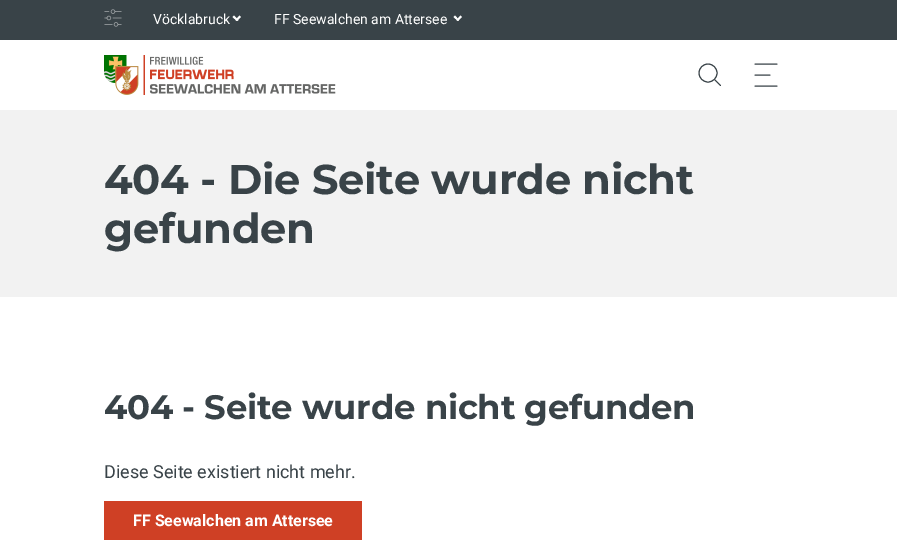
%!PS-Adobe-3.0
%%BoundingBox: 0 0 897 540
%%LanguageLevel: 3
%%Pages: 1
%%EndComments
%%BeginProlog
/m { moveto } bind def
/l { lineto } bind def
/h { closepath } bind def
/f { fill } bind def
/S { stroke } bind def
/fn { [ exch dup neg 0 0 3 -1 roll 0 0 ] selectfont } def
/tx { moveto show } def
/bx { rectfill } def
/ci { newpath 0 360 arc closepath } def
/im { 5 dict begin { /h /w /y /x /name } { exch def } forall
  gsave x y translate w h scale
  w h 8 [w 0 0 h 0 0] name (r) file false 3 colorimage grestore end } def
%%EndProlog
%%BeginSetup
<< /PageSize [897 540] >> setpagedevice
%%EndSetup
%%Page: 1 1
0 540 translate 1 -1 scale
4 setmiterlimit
1 setgray
0 0 897 540 bx
0.224 0.263 0.282 setrgbcolor
0 0 897 40 bx
(image0.raw) 104 9 18 18 im
/Roboto-Regular 14 fn
1 setgray
(Vöcklabruck) 153 24 tx
239.5 15.5 m 241 17 l 237 21 l 235.5 20 l h f
234 15.5 m 238.5 20 l 237 21 l 232.5 17 l h f
(FF Seewalchen am Attersee) 274 24 tx
460.5 15.5 m 462 17 l 458 21 l 456.5 20 l h f
455 15.5 m 459 20 l 458 21 l 453.5 17 l h f
(image1.raw) 104 55 232 40 im
0.224 0.263 0.282 setrgbcolor
708 73 9 ci S
1 setlinecap
1 setlinejoin
715 80 m 720.5 85.5 l S
755 75 m 770 75 l 755 64 m 777 64 l 755 86 m 777 86 l S
0.949 setgray
0 110 897 187 bx
/Montserrat-Thin 41.6 fn
0.224 0.263 0.282 setrgbcolor
104 194 m -0.25 0 (404 - Die Seite wurde nicht) ashow
104 243 m -0.25 0 (gefunden) ashow
/Montserrat-Thin 33.9 fn
104 419 m -0.25 0 (404 - Seite wurde nicht gefunden) ashow
/Roboto-Regular 18 fn
(Diese Seite existiert nicht mehr.) 104 478 tx
0.812 0.251 0.145 setrgbcolor
104 501 258 39 bx
/Roboto-Bold 16 fn
1 setgray
(FF Seewalchen am Attersee) 133 526 tx
showpage
%%EOF
